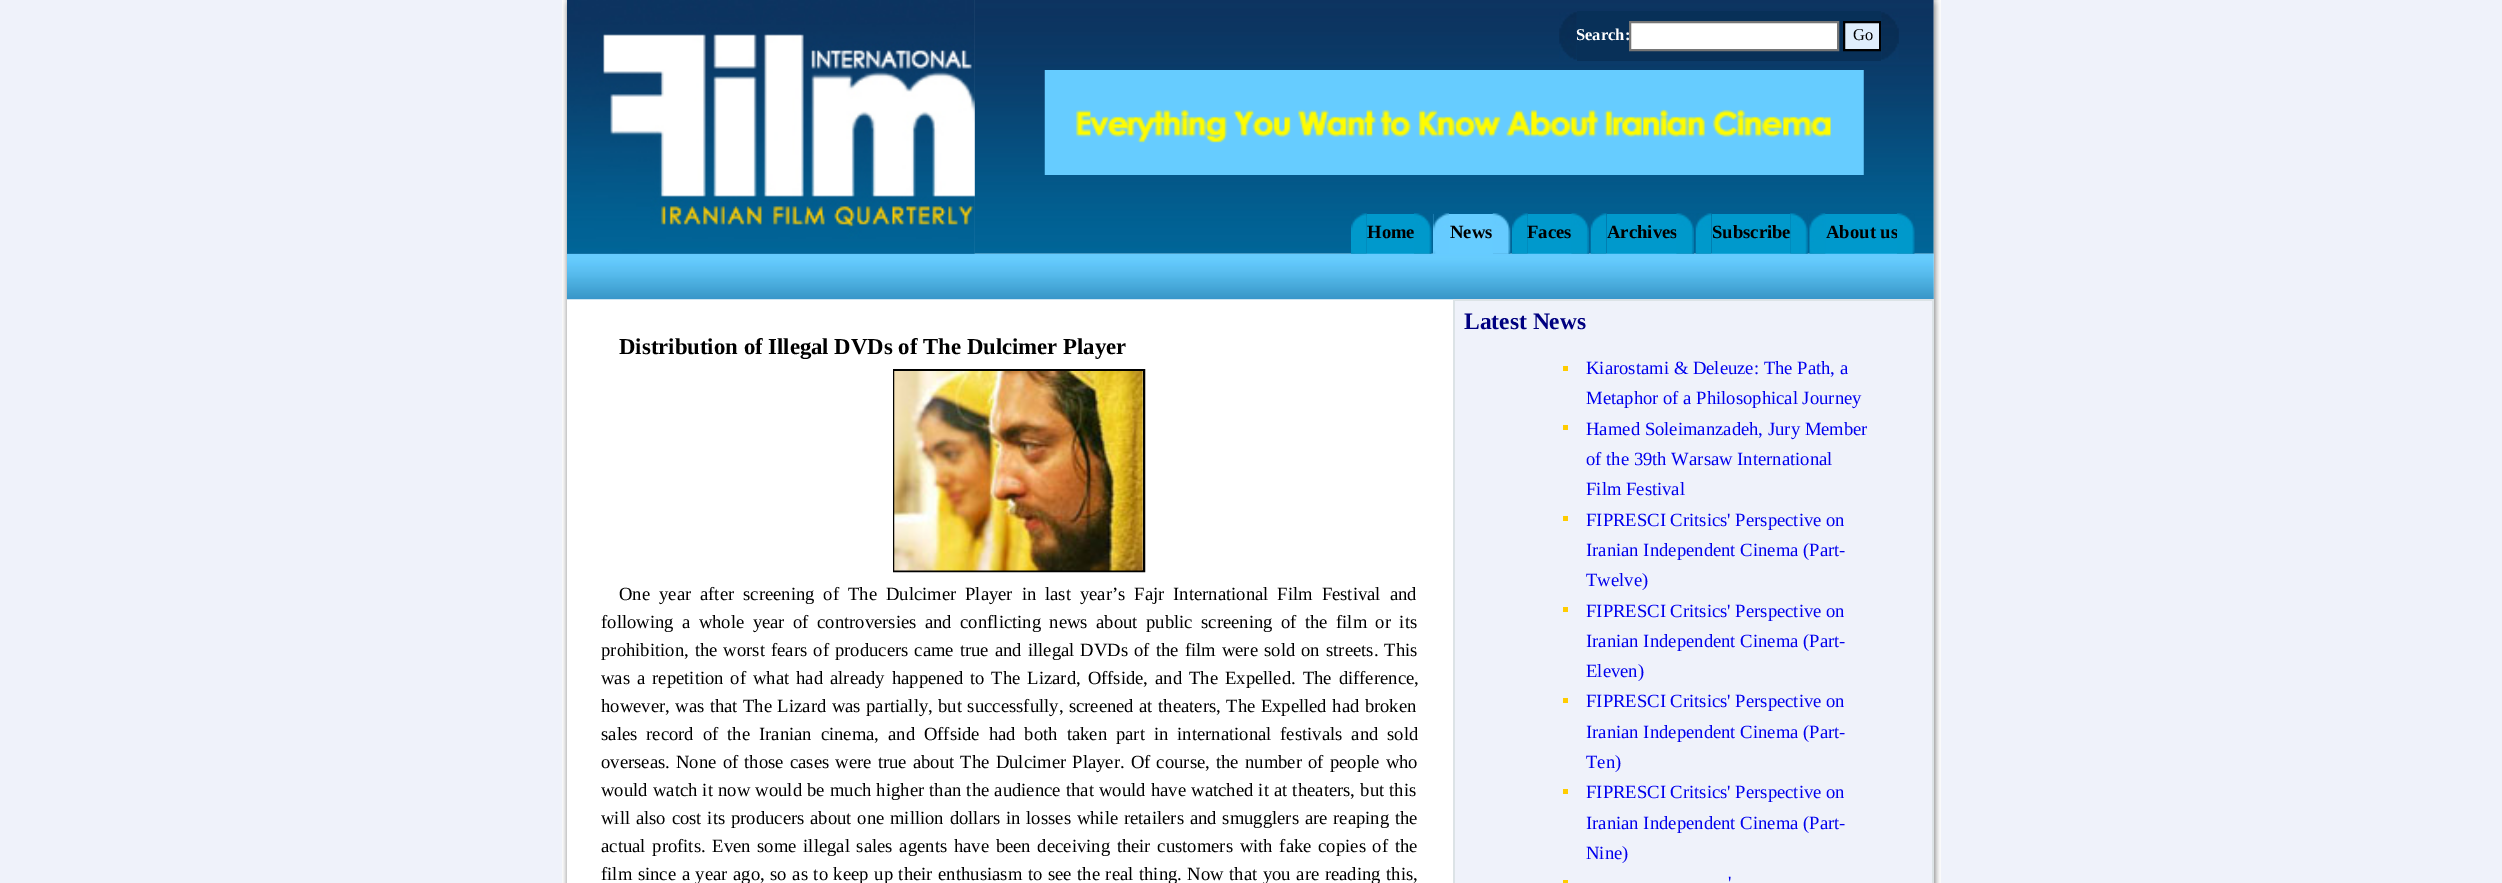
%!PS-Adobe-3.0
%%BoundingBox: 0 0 2502 883
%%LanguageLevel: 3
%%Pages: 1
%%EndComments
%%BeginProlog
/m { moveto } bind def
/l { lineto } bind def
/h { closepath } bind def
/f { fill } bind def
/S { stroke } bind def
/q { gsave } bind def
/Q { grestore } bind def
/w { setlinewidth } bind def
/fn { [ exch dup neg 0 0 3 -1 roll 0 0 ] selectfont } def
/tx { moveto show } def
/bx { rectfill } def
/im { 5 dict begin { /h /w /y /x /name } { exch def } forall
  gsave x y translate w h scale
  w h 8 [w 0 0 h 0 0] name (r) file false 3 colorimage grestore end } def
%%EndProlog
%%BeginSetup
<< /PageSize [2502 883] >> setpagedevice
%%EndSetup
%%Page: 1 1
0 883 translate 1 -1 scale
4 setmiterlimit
0.937 0.949 0.98 setrgbcolor
0 0 2502 883 bx
1 setgray
567 0 1374 883 bx
(image0.raw) 562 0 5 883 im
(image1.raw) 567 0 408 254 im
(image3.raw) 974 0 960 254 im
0 0.6 0.8 setrgbcolor
1367 214 47 40 bx
0.4 0.8 1 setrgbcolor
1433 214 60 40 bx
0 0.6 0.8 setrgbcolor
1528 214 44 40 bx
1607 214 70 40 bx
1712 214 78 40 bx
1825 214 72 40 bx
(image19.raw) 1933 0 8 883 im
(image20.raw) 567 253 1367 47 im
(image2.raw) 567 0 408 254 im
(image4.raw) 1559 12 18 48 im
0.031 0.188 0.345 setrgbcolor
1577 11 304 50 bx
/LiberationSerif-Bold 16.5 fn
1 setgray
(Search:) 1576 40 tx
1630 22 m 1838 22 l 1838 50 l 1630 50 l h q f Q
0.463 setgray
2 w
S
0.878 0.933 0.988 setrgbcolor
1844 22 m 1880 22 l 1880 50 l 1844 50 l h q f Q
0 setgray
S
/LiberationSerif-Regular 16.5 fn
(Go) 1853 40 tx
(image5.raw) 1881 12 18 48 im
(image6.raw) 1044 70 820 105 im
(image7.raw) 1351 213 16 41 im
/LiberationSerif-Bold 18.65 fn
(Home) 1367 238 tx
(image8.raw) 1414 213 18 41 im
(image9.raw) 1433 213 16 41 im
(image10.raw) 1492 213 19 41 im
(image11.raw) 1512 213 16 41 im
(Faces) 1527 238 tx
(image12.raw) 1571 213 18 41 im
(image13.raw) 1590 213 17 41 im
(Archives) 1607 238 tx
(image14.raw) 1676 213 18 41 im
(image15.raw) 1695 213 17 41 im
(Subscribe) 1712 238 tx
(image16.raw) 1790 213 18 41 im
(image17.raw) 1809 213 17 41 im
(About us) 1826 238 tx
(image18.raw) 1897 213 18 41 im
(News) 1450 238 tx
/LiberationSerif-Bold 22.75 fn
(Distribution of Illegal DVDs of The Dulcimer Player) 619 354 tx
894 370 250 201 rectstroke
(image21.raw) 894 371 249 200 im
/LiberationSerif-Regular 18.65 fn
619 600 m 4.25 0 32 (One year after screening of The Dulcimer Player in last year’s Fajr International Film Festival and) widthshow
601 628 m 3.75 0 32 (following a whole year of controversies and conflicting news about public screening of the film or its) widthshow
601 656 m 1.4 0 32 (prohibition, the worst fears of producers came true and illegal DVDs of the film were sold on streets. This) widthshow
601 684 m 2.25 0 32 (was a repetition of what had already happened to The Lizard, Offside, and The Expelled. The difference,) widthshow
601 712 m 0.75 0 32 (however, was that The Lizard was partially, but successfully, screened at theaters, The Expelled had broken) widthshow
601 740 m 4.25 0 32 (sales record of the Iranian cinema, and Offside had both taken part in international festivals and sold) widthshow
601 768 m 1.5 0 32 (overseas. None of those cases were true about The Dulcimer Player. Of course, the number of people who) widthshow
601 796 m 0.5 0 32 (would watch it now would be much higher than the audience that would have watched it at theaters, but this) widthshow
601 824 m 1.1 0 32 (will also cost its producers about one million dollars in losses while retailers and smugglers are reaping the) widthshow
601 852 m 2 0 32 (actual profits. Even some illegal sales agents have been deceiving their customers with fake copies of the) widthshow
601 880 m 0.9 0 32 (film since a year ago, so as to keep up their enthusiasm to see the real thing. Now that you are reading this,) widthshow
0.863 0.89 0.902 setrgbcolor
1453 299 481 2 bx
1932 299 2 584 bx
1453 299 2 584 bx
0.937 0.949 0.98 setrgbcolor
1455 301 477 582 bx
/LiberationSerif-Bold 23.5 fn
0 0 0.502 setrgbcolor
(Latest News) 1464 329 tx
1 0.8 0 setrgbcolor
1563 366 5 5 bx
/LiberationSerif-Regular 18.65 fn
0 0 0.933 setrgbcolor
(Kiarostami & Deleuze: The Path, a) 1586 374 tx
(Metaphor of a Philosophical Journey) 1586 404 tx
1 0.8 0 setrgbcolor
1563 425 5 5 bx
0 0 0.933 setrgbcolor
(Hamed Soleimanzadeh, Jury Member) 1586 435 tx
(of the 39th Warsaw International) 1586 465 tx
(Film Festival) 1586 495 tx
1 0.8 0 setrgbcolor
1563 516 5 5 bx
0 0 0.933 setrgbcolor
(FIPRESCI Critsics' Perspective on) 1586 526 tx
(Iranian Independent Cinema \(Part-) 1586 556 tx
(Twelve\)) 1586 586 tx
1 0.8 0 setrgbcolor
1563 607 5 5 bx
0 0 0.933 setrgbcolor
(FIPRESCI Critsics' Perspective on) 1586 617 tx
(Iranian Independent Cinema \(Part-) 1586 647 tx
(Eleven\)) 1586 677 tx
1 0.8 0 setrgbcolor
1563 698 5 5 bx
0 0 0.933 setrgbcolor
(FIPRESCI Critsics' Perspective on) 1586 707 tx
(Iranian Independent Cinema \(Part-) 1586 738 tx
(Ten\)) 1586 768 tx
1 0.8 0 setrgbcolor
1563 789 5 5 bx
0 0 0.933 setrgbcolor
(FIPRESCI Critsics' Perspective on) 1586 798 tx
(Iranian Independent Cinema \(Part-) 1586 829 tx
(Nine\)) 1586 859 tx
1 0.8 0 setrgbcolor
1563 880 5 3 bx
0 0 0.933 setrgbcolor
(') 1728 889 tx
showpage
%%EOF
